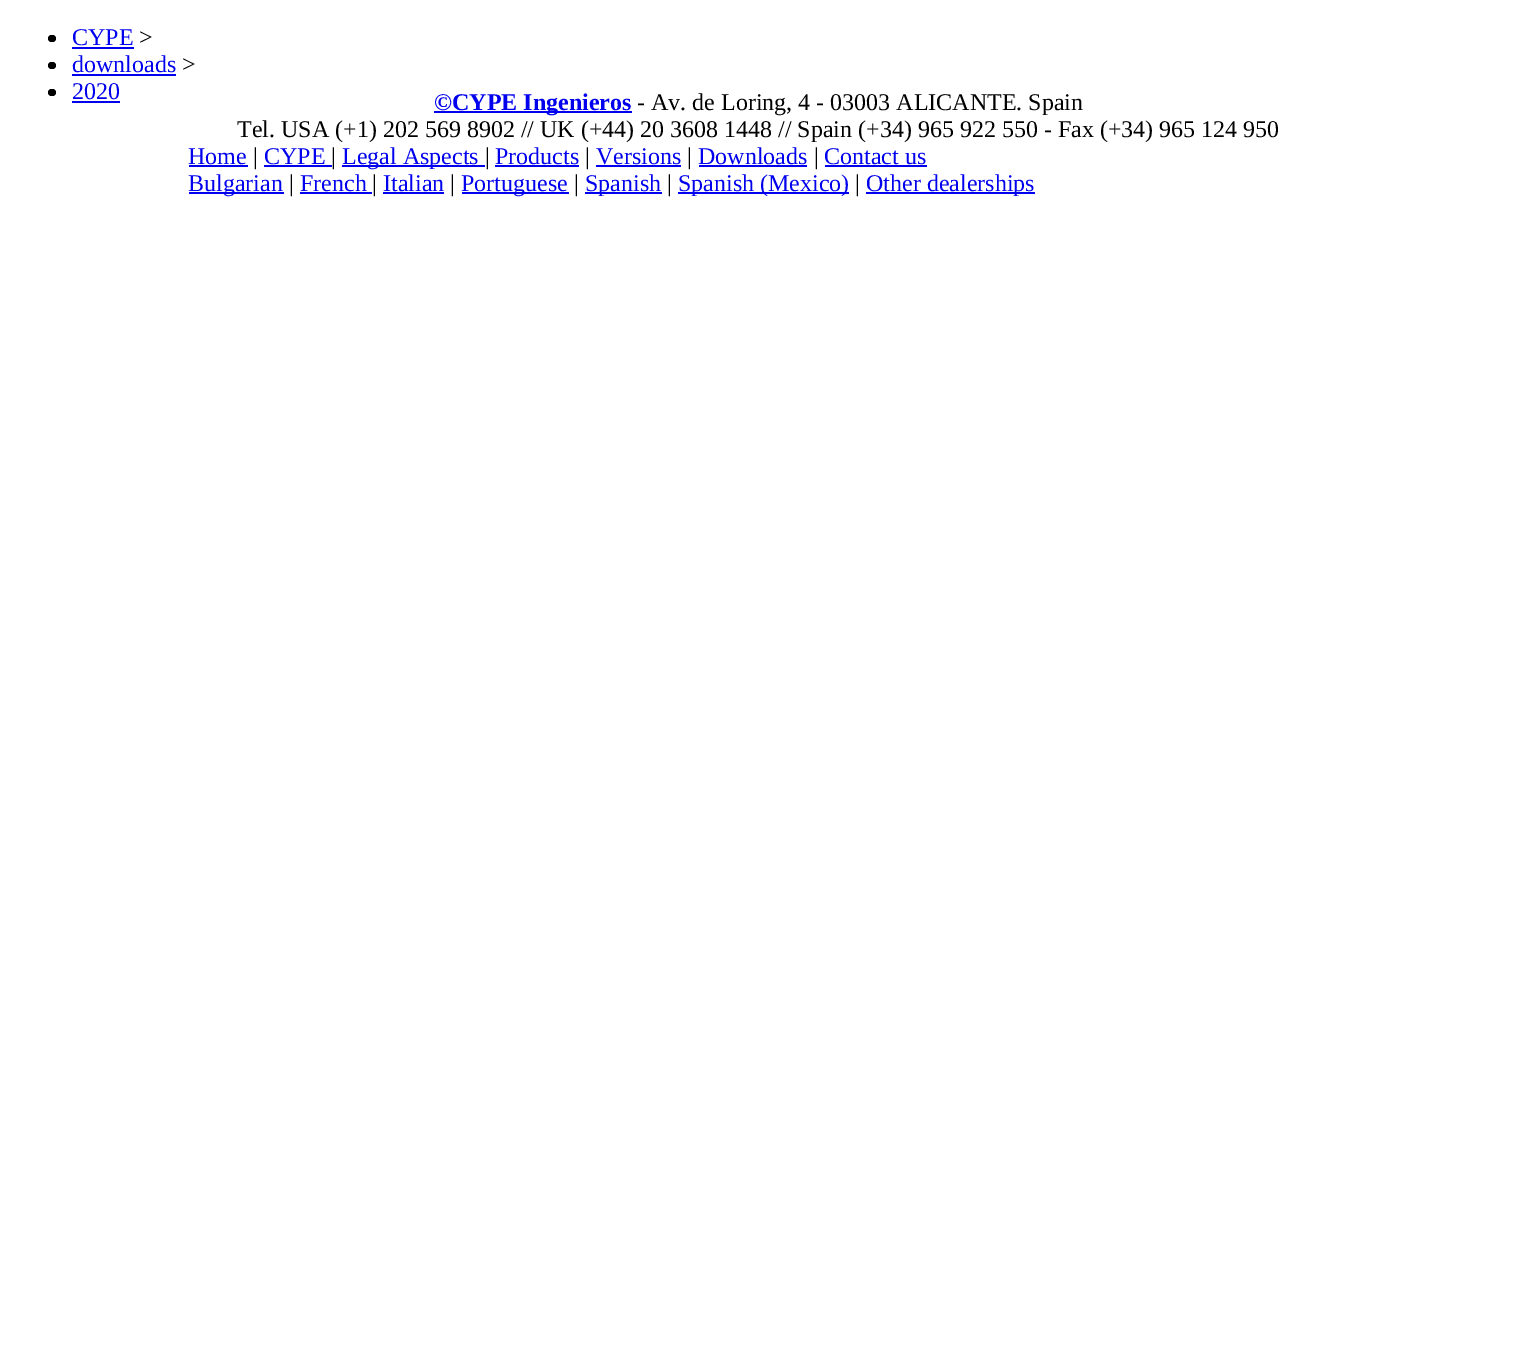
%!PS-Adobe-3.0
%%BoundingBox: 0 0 1516 1365
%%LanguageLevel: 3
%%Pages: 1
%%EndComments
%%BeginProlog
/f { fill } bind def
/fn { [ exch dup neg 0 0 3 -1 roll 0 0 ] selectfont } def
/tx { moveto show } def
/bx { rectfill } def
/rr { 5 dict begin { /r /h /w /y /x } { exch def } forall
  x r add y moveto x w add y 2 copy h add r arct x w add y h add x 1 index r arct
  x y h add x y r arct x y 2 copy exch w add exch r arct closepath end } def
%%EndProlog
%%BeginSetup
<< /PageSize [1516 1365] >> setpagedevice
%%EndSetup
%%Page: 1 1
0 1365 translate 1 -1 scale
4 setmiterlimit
1 setgray
0 0 1516 1365 bx
0 setgray
48 35 8 7 3.5 rr f
/LiberationSerif-Regular 24 fn
0 0 0.933 setrgbcolor
(CYPE) 72 45 tx
72 47 62 2 bx
0 setgray
(>) 139 45 tx
48 62 8 7 3.5 rr f
0 0 0.933 setrgbcolor
(downloads) 72 72 tx
72 74 104 2 bx
0 setgray
(>) 182 72 tx
48 89 8 7 3.5 rr f
0 0 0.933 setrgbcolor
(2020) 72 99 tx
72 101 48 2 bx
434 111 198 2 bx
/LiberationSerif-Bold 24 fn
(©CYPE Ingenieros) 434 110 tx
/LiberationSerif-Regular 24 fn
0 setgray
(- Av. de Loring, 4 - 03003 ALICANTE. Spain) 637 110 tx
(Tel. USA \(+1\) 202 569 8902 // UK \(+44\) 20 3608 1448 // Spain \(+34\) 965 922 550 - Fax \(+34\) 965 124 950) 237 137 tx
0 0 0.933 setrgbcolor
(Home) 188 164 tx
189 165 59 2 bx
0 setgray
(|) 253 164 tx
0 0 0.933 setrgbcolor
(CYPE) 264 164 tx
264 165 68 2 bx
0 setgray
(|) 331 164 tx
0 0 0.933 setrgbcolor
342 165 143 2 bx
(Legal Aspects) 342 164 tx
0 setgray
(|) 485 164 tx
0 0 0.933 setrgbcolor
(Products) 495 164 tx
495 165 84 2 bx
0 setgray
(|) 585 164 tx
0 0 0.933 setrgbcolor
(Versions) 596 164 tx
596 165 85 2 bx
0 setgray
(|) 687 164 tx
0 0 0.933 setrgbcolor
(Downloads) 698 164 tx
699 165 108 2 bx
0 setgray
(|) 814 164 tx
0 0 0.933 setrgbcolor
(Contact us) 824 164 tx
825 165 102 2 bx
189 192 95 2 bx
(Bulgarian) 188 191 tx
0 setgray
(|) 289 191 tx
0 0 0.933 setrgbcolor
(French) 300 191 tx
300 192 72 2 bx
0 setgray
(|) 372 191 tx
0 0 0.933 setrgbcolor
(Italian) 383 191 tx
383 192 61 2 bx
0 setgray
(|) 450 191 tx
0 0 0.933 setrgbcolor
462 192 107 2 bx
(Portuguese) 461 191 tx
0 setgray
(|) 574 191 tx
0 0 0.933 setrgbcolor
585 192 77 2 bx
(Spanish) 585 191 tx
0 setgray
(|) 667 191 tx
0 0 0.933 setrgbcolor
678 192 171 2 bx
(Spanish \(Mexico\)) 678 191 tx
0 setgray
(|) 855 191 tx
0 0 0.933 setrgbcolor
866 192 169 2 bx
(Other dealerships) 866 191 tx
showpage
%%EOF
